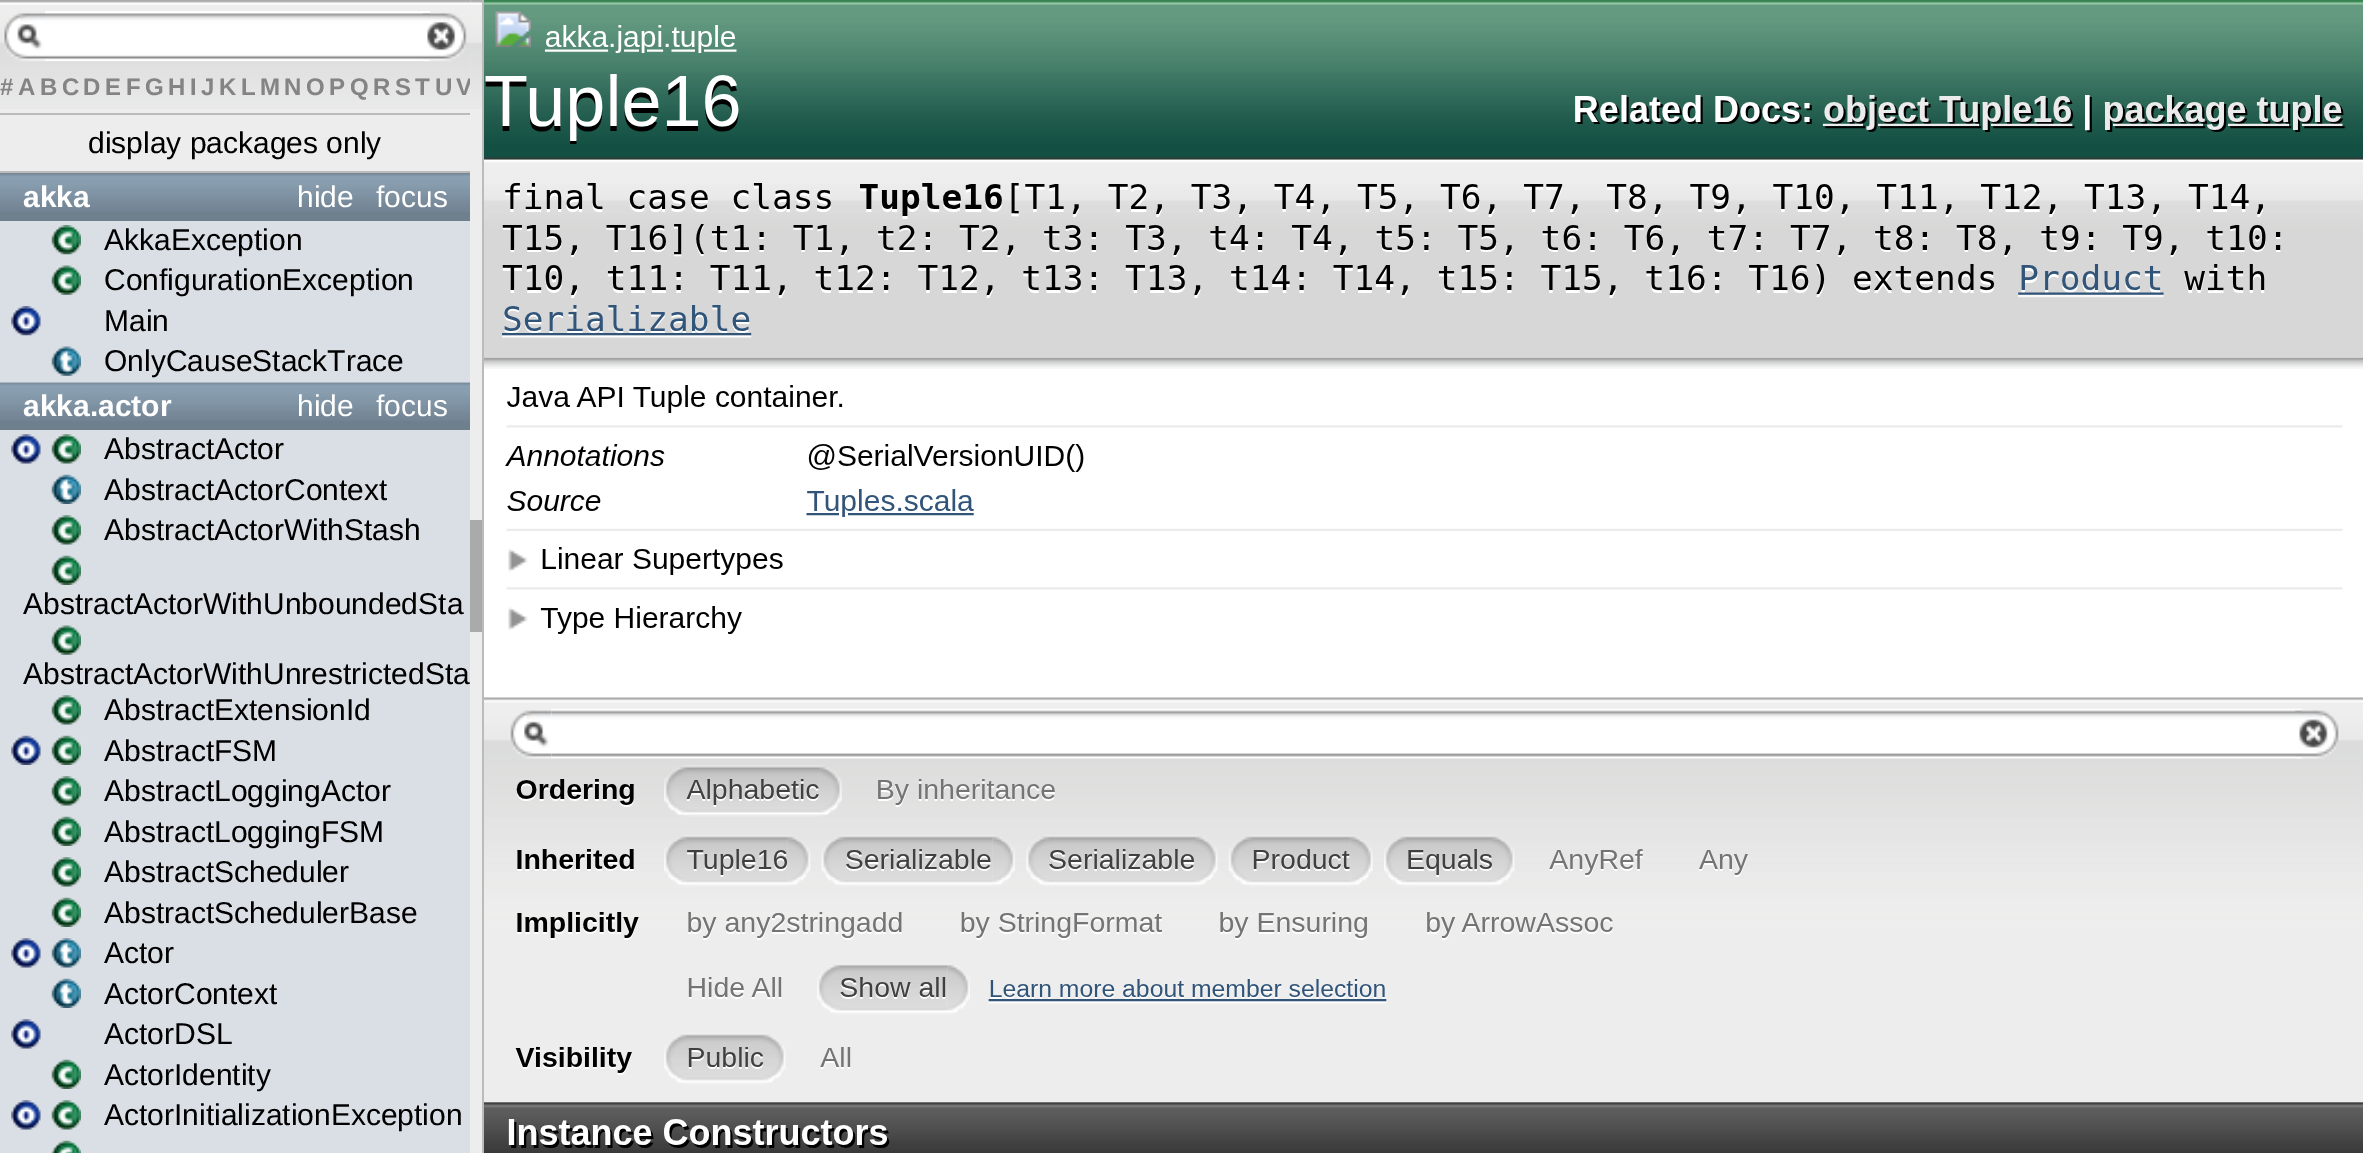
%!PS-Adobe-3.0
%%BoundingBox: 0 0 2363 1153
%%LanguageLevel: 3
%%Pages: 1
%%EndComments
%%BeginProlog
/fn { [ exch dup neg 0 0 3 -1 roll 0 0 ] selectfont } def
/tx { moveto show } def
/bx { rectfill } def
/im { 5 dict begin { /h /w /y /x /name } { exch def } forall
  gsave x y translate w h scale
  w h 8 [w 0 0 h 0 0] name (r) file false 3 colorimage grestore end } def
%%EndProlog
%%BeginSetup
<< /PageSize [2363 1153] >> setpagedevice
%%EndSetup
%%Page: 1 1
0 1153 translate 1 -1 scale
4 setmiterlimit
1 setgray
0 0 2363 1153 bx
0.929 0.929 0.933 setrgbcolor
0 109 470 62 bx
(image0.raw) 0 0 470 109 im
0.733 setgray
0 171 470 2 bx
(image1.raw) 3 13 45 49 im
1 setgray
45 11 385 50 bx
(image2.raw) 45 13 385 47 im
(image3.raw) 423 13 44 49 im
0.733 setgray
0 113 470 2 bx
/LiberationSans-Bold 24 fn
0.522 0.518 0.518 setrgbcolor
(#) 0 95 tx
(A) 18 95 tx
(B) 40 95 tx
(C) 62 95 tx
(D) 83 95 tx
(E) 105 95 tx
(F) 126 95 tx
(G) 145 95 tx
(H) 168 95 tx
(I) 190 95 tx
(J) 201 95 tx
(K) 219 95 tx
(L) 241 95 tx
(M) 260 95 tx
(N) 284 95 tx
(O) 306 95 tx
(P) 329 95 tx
(Q) 350 95 tx
(R) 373 95 tx
(S) 395 95 tx
(T) 415 95 tx
(U) 435 95 tx
(V) 456 95 tx
/LiberationSans-Regular 30 fn
0 setgray
(display packages only) 88 153 tx
0.431 0.502 0.557 setrgbcolor
0 173 470 48 bx
(image4.raw) 0 173 470 39 im
/LiberationSans-Bold 30 fn
1 setgray
(akka) 23 207 tx
/LiberationSans-Regular 30 fn
(hide) 297 207 tx
(focus) 376 207 tx
0.855 0.875 0.902 setrgbcolor
0 221 470 162 bx
(image5.raw) 51 225 30 30 im
0 setgray
(AkkaException) 104 250 tx
(image6.raw) 51 265 30 30 im
(ConfigurationException) 104 290 tx
(image7.raw) 11 306 30 30 im
(Main) 104 331 tx
(image8.raw) 51 346 30 30 im
(OnlyCauseStackTrace) 104 371 tx
0.431 0.502 0.557 setrgbcolor
0 421 470 9 bx
(image9.raw) 0 382 470 39 im
/LiberationSans-Bold 30 fn
1 setgray
(akka.actor) 23 416 tx
/LiberationSans-Regular 30 fn
(hide) 297 416 tx
(focus) 376 416 tx
0.855 0.875 0.902 setrgbcolor
0 430 470 723 bx
(image10.raw) 11 434 30 30 im
(image11.raw) 51 434 30 30 im
0 setgray
(AbstractActor) 104 459 tx
(image12.raw) 51 474 30 30 im
(AbstractActorContext) 104 500 tx
(image11.raw) 51 515 30 30 im
(AbstractActorWithStash) 104 540 tx
(image13.raw) 51 555 30 30 im
(AbstractActorWithUnboundedSta) 23 614 tx
(image6.raw) 51 625 30 30 im
(AbstractActorWithUnrestrictedSta) 23 684 tx
(image11.raw) 51 695 30 30 im
(AbstractExtensionId) 104 720 tx
(image14.raw) 11 735 30 30 im
(image15.raw) 51 735 30 30 im
(AbstractFSM) 104 761 tx
(image16.raw) 51 776 30 30 im
(AbstractLoggingActor) 104 801 tx
(image13.raw) 51 816 30 30 im
(AbstractLoggingFSM) 104 842 tx
(image11.raw) 51 857 30 30 im
(AbstractScheduler) 104 882 tx
(image15.raw) 51 897 30 30 im
(AbstractSchedulerBase) 104 923 tx
(image10.raw) 11 938 30 30 im
(image17.raw) 51 938 30 30 im
(Actor) 104 963 tx
(image12.raw) 51 978 30 30 im
(ActorContext) 104 1004 tx
(image10.raw) 11 1019 30 30 im
(ActorDSL) 104 1044 tx
(image15.raw) 51 1059 30 30 im
(ActorIdentity) 104 1085 tx
(image10.raw) 11 1100 30 30 im
(image11.raw) 51 1100 30 30 im
(ActorInitializationException) 104 1125 tx
(image18.raw) 51 1140 30 13 im
0.929 0.929 0.933 setrgbcolor
470 0 12 1153 bx
(image19.raw) 470 0 12 109 im
0.733 setgray
482 0 2 1153 bx
0.667 setgray
470 520 12 112 bx
(image20.raw) 484 0 1879 1153 im
showpage
%%EOF
